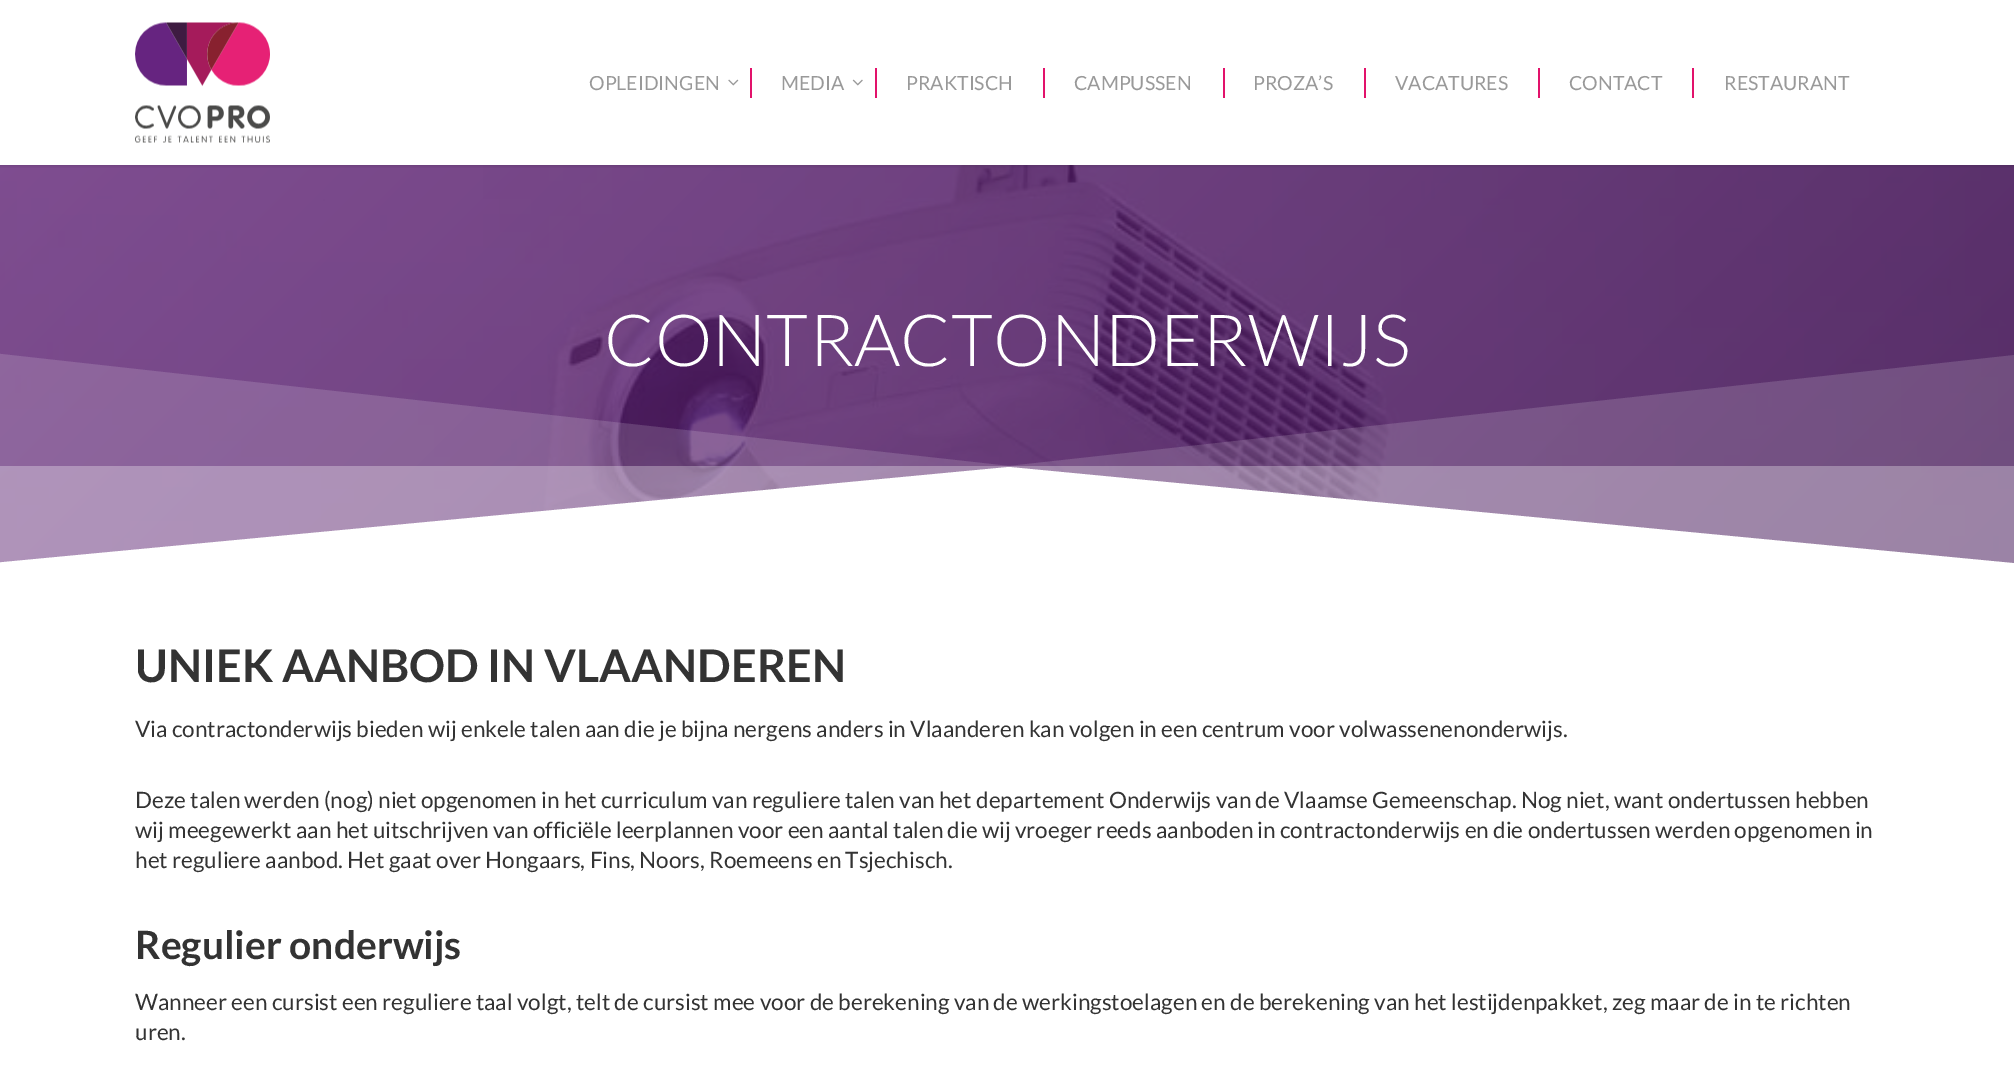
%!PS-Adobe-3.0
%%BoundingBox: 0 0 2014 1085
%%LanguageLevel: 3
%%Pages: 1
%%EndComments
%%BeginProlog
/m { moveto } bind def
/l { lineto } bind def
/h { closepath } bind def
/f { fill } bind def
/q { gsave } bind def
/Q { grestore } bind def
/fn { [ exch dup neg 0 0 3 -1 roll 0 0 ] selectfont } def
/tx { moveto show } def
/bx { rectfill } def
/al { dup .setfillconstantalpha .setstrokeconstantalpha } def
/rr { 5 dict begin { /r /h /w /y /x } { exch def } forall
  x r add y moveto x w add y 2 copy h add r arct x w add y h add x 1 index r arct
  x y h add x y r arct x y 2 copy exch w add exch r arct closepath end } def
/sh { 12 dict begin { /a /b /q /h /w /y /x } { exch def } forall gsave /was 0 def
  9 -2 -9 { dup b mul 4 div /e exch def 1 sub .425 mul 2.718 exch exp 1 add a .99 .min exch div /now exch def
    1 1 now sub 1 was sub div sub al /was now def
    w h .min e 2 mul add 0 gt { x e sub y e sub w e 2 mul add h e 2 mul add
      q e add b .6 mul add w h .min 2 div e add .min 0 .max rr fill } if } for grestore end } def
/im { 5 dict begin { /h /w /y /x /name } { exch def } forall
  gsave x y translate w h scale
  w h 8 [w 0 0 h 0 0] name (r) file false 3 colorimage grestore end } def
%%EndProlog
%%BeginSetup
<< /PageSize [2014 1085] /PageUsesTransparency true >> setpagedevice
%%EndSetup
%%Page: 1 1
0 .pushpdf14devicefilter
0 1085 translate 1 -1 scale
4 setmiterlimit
1 setgray
0 0 2014 1085 bx
(image3.raw) 0 165 2014 399 im
q
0 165 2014 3 rectclip
0 setgray
0 0 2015 165 0 2 0.22 sh
Q
(image0.raw) 135 22 135 121 im
/Lato-Regular 19.5 fn
0.6 setgray
(OPLEIDINGEN) 589 90 tx
(image1.raw) 728 79 11 7 im
0.886 0.071 0.42 setrgbcolor
750 68 2 30 bx
0.6 setgray
(MEDIA) 781 90 tx
(image2.raw) 852 79 11 7 im
0.886 0.071 0.42 setrgbcolor
875 68 2 30 bx
0.6 setgray
(PRAKTISCH) 906 90 tx
0.886 0.071 0.42 setrgbcolor
1043 68 2 30 bx
0.6 setgray
(CAMPUSSEN) 1074 90 tx
0.886 0.071 0.42 setrgbcolor
1223 68 2 30 bx
0.6 setgray
(PROZA’S) 1253 90 tx
0.886 0.071 0.42 setrgbcolor
1364 68 2 30 bx
0.6 setgray
(VACATURES) 1395 90 tx
0.886 0.071 0.42 setrgbcolor
1538 68 2 30 bx
0.6 setgray
(CONTACT) 1569 90 tx
0.886 0.071 0.42 setrgbcolor
1692 68 2 30 bx
0.6 setgray
(RESTAURANT) 1724 90 tx
/Lato-Light 72 fn
1 setgray
(CONTRACTONDERWIJS) 604 366 tx
q
0 353 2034 225 rectclip
1009 467 m -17 564 l -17 580 l 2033 580 l 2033 565 l h f
Q
0.15 al
1009 466 m -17 352 l -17 578 l 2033 578 l 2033 353 l h f
0.3 al
0 466 2014 98 bx
/Lato-Bold 45 fn
1 al
0.2 setgray
(UNIEK AANBOD IN VLAANDEREN) 135 682 tx
/Lato-Regular 22.5 fn
(Via contractonderwijs bieden wij enkele talen aan die je bijna nergens anders in Vlaanderen kan volgen in een centrum voor volwassenenonderwijs.) 135 737 tx
(Deze talen werden \(nog\) niet opgenomen in het curriculum van reguliere talen van het departement Onderwijs van de Vlaamse Gemeenschap. Nog niet, want ondertussen hebben) 135 808 tx
(wij meegewerkt aan het uitschrijven van officiële leerplannen voor een aantal talen die wij vroeger reeds aanboden in contractonderwijs en die ondertussen werden opgenomen in) 135 838 tx
(het reguliere aanbod. Het gaat over Hongaars, Fins, Noors, Roemeens en Tsjechisch.) 135 868 tx
/Lato-Bold 39 fn
(Regulier onderwijs) 135 959 tx
/Lato-Regular 22.5 fn
(Wanneer een cursist een reguliere taal volgt, telt de cursist mee voor de berekening van de werkingstoelagen en de berekening van het lestijdenpakket, zeg maar de in te richten) 135 1010 tx
(uren.) 135 1040 tx
.poppdf14devicefilter showpage
%%EOF
